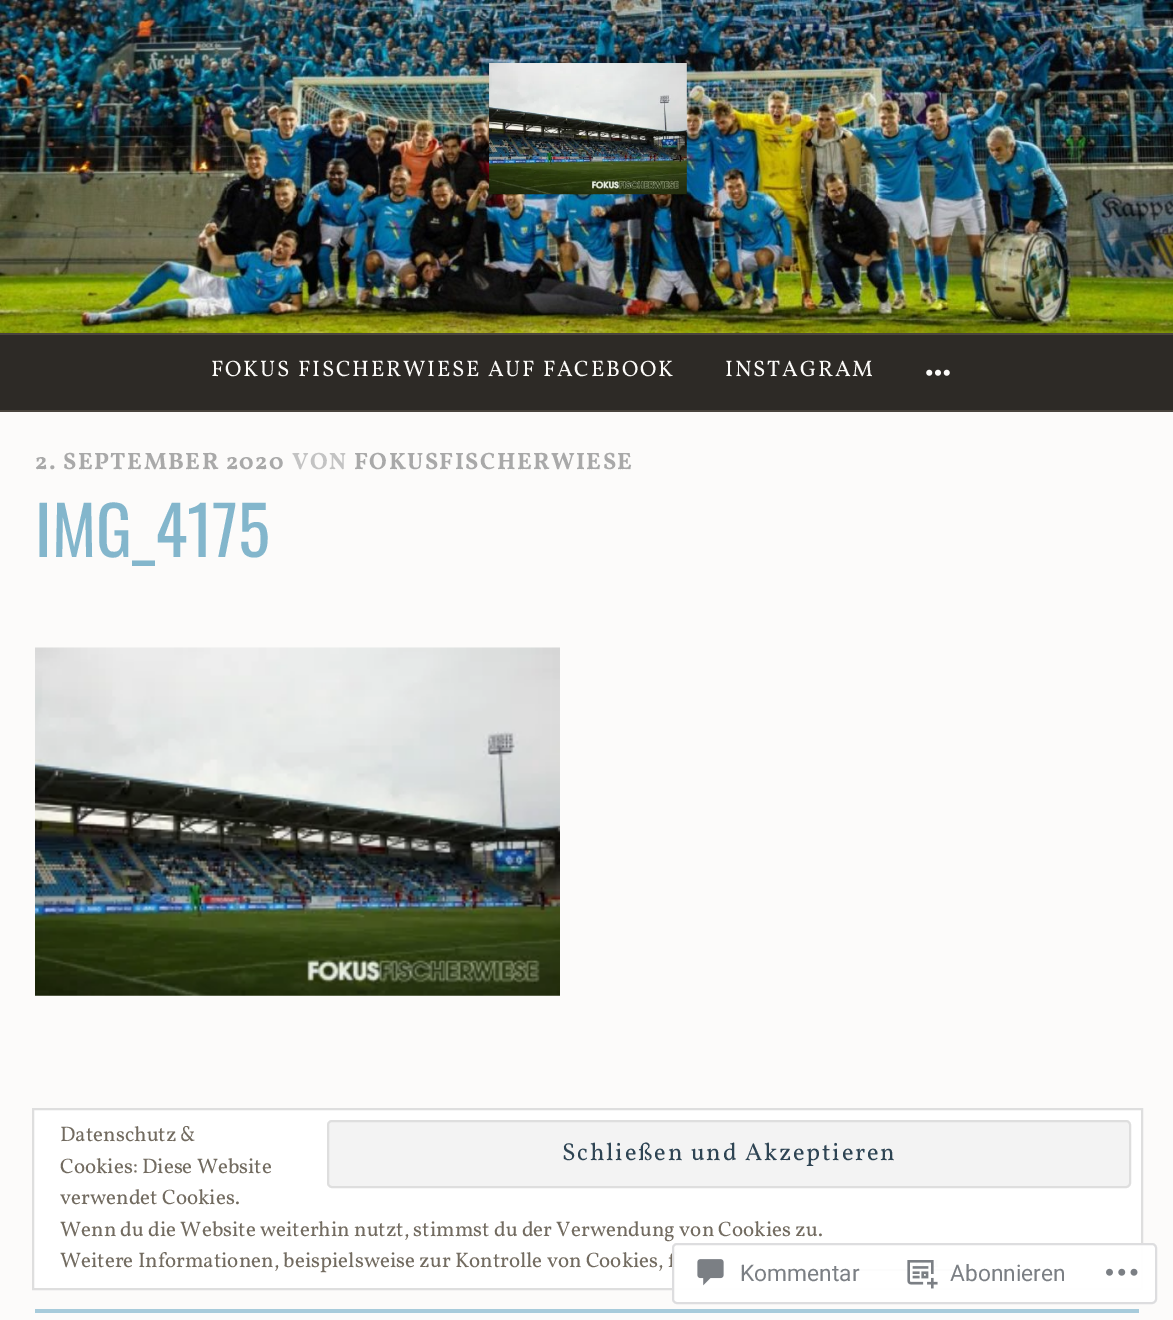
%!PS-Adobe-3.0
%%BoundingBox: 0 0 1173 1320
%%LanguageLevel: 3
%%Pages: 1
%%EndComments
%%BeginProlog
/m { moveto } bind def
/l { lineto } bind def
/h { closepath } bind def
/f { fill } bind def
/S { stroke } bind def
/q { gsave } bind def
/Q { grestore } bind def
/w { setlinewidth } bind def
/fn { [ exch dup neg 0 0 3 -1 roll 0 0 ] selectfont } def
/tx { moveto show } def
/bx { rectfill } def
/al { dup .setfillconstantalpha .setstrokeconstantalpha } def
/rr { 5 dict begin { /r /h /w /y /x } { exch def } forall
  x r add y moveto x w add y 2 copy h add r arct x w add y h add x 1 index r arct
  x y h add x y r arct x y 2 copy exch w add exch r arct closepath end } def
/im { 5 dict begin { /h /w /y /x /name } { exch def } forall
  gsave x y translate w h scale
  w h 8 [w 0 0 h 0 0] name (r) file false 3 colorimage grestore end } def
%%EndProlog
%%BeginSetup
<< /PageSize [1173 1320] /PageUsesTransparency true >> setpagedevice
%%EndSetup
%%Page: 1 1
0 .pushpdf14devicefilter
0 1320 translate 1 -1 scale
4 setmiterlimit
0.988 0.984 0.98 setrgbcolor
0 0 1173 1320 bx
(image0.raw) 0 0 1173 333 im
(image1.raw) 489 63 198 132 im
0.176 0.165 0.149 setrgbcolor
0 335 1173 75 bx
0.286 0.267 0.239 setrgbcolor
0 333 1173 2 bx
0 410 1173 2 bx
/Vollkorn-Regular 22.4 fn
0.988 0.984 0.976 setrgbcolor
211 376 m 1.75 0 (FOKUS FISCHERWIESE AUF FACEBOOK) ashow
725 376 m 1.75 0 (INSTAGRAM) ashow
(image2.raw) 926 369 24 7 im
/Vollkorn-Bold 23.75 fn
0.663 setgray
35 469 m 1.4 0 (2. SEPTEMBER 2020) ashow
0.765 setgray
292 469 m 1.4 0 (VON) ashow
0.663 setgray
354 469 m 1.4 0 (FOKUSFISCHERWIESE) ashow
/Oswald-Regular 67 fn
0.514 0.714 0.8 setrgbcolor
(IMG_4175) 35 557 tx
(image3.raw) 35 647 525 349 im
0.655 0.796 0.859 setrgbcolor
35 1309 1104 4 bx
1 setgray
33 1109 m 1142 1109 l 1142 1289 l 33 1289 l h q f Q
0.871 setgray
2 w
S
/Vollkorn-Regular 21 fn
0.447 0.42 0.376 setrgbcolor
(Datenschutz &) 60 1141 tx
(Cookies: Diese Website) 60 1173 tx
0.953 setgray
328 1121 802 66 4 rr q f Q
0.871 setgray
S
/Vollkorn-Regular 24.5 fn
0.18 0.267 0.325 setrgbcolor
562 1160 m 1.75 0 (Schließen und Akzeptieren) ashow
/Vollkorn-Regular 21 fn
0.447 0.42 0.376 setrgbcolor
(verwendet Cookies.) 60 1204 tx
(Wenn du die Website weiterhin nutzt, stimmst du der Verwendung von Cookies zu.) 60 1236 tx
(Weitere Informationen, beispielsweise zur Kontrolle von Cookies, f) 60 1267 tx
810 1269 165 2 bx
0.98 al
1 setgray
672 1243 485 61 5 rr f
0.863 0.863 0.871 setrgbcolor
673 1244 483 59 4 rr S
1 al
(image4.raw) 697 1259 27 27 im
/Roboto-Regular 22.75 fn
0.482 0.498 0.518 setrgbcolor
(Kommentar) 740 1281 tx
(image5.raw) 907 1260 31 29 im
(Abonnieren) 950 1281 tx
(image6.raw) 1106 1268 32 8 im
.poppdf14devicefilter showpage
%%EOF
